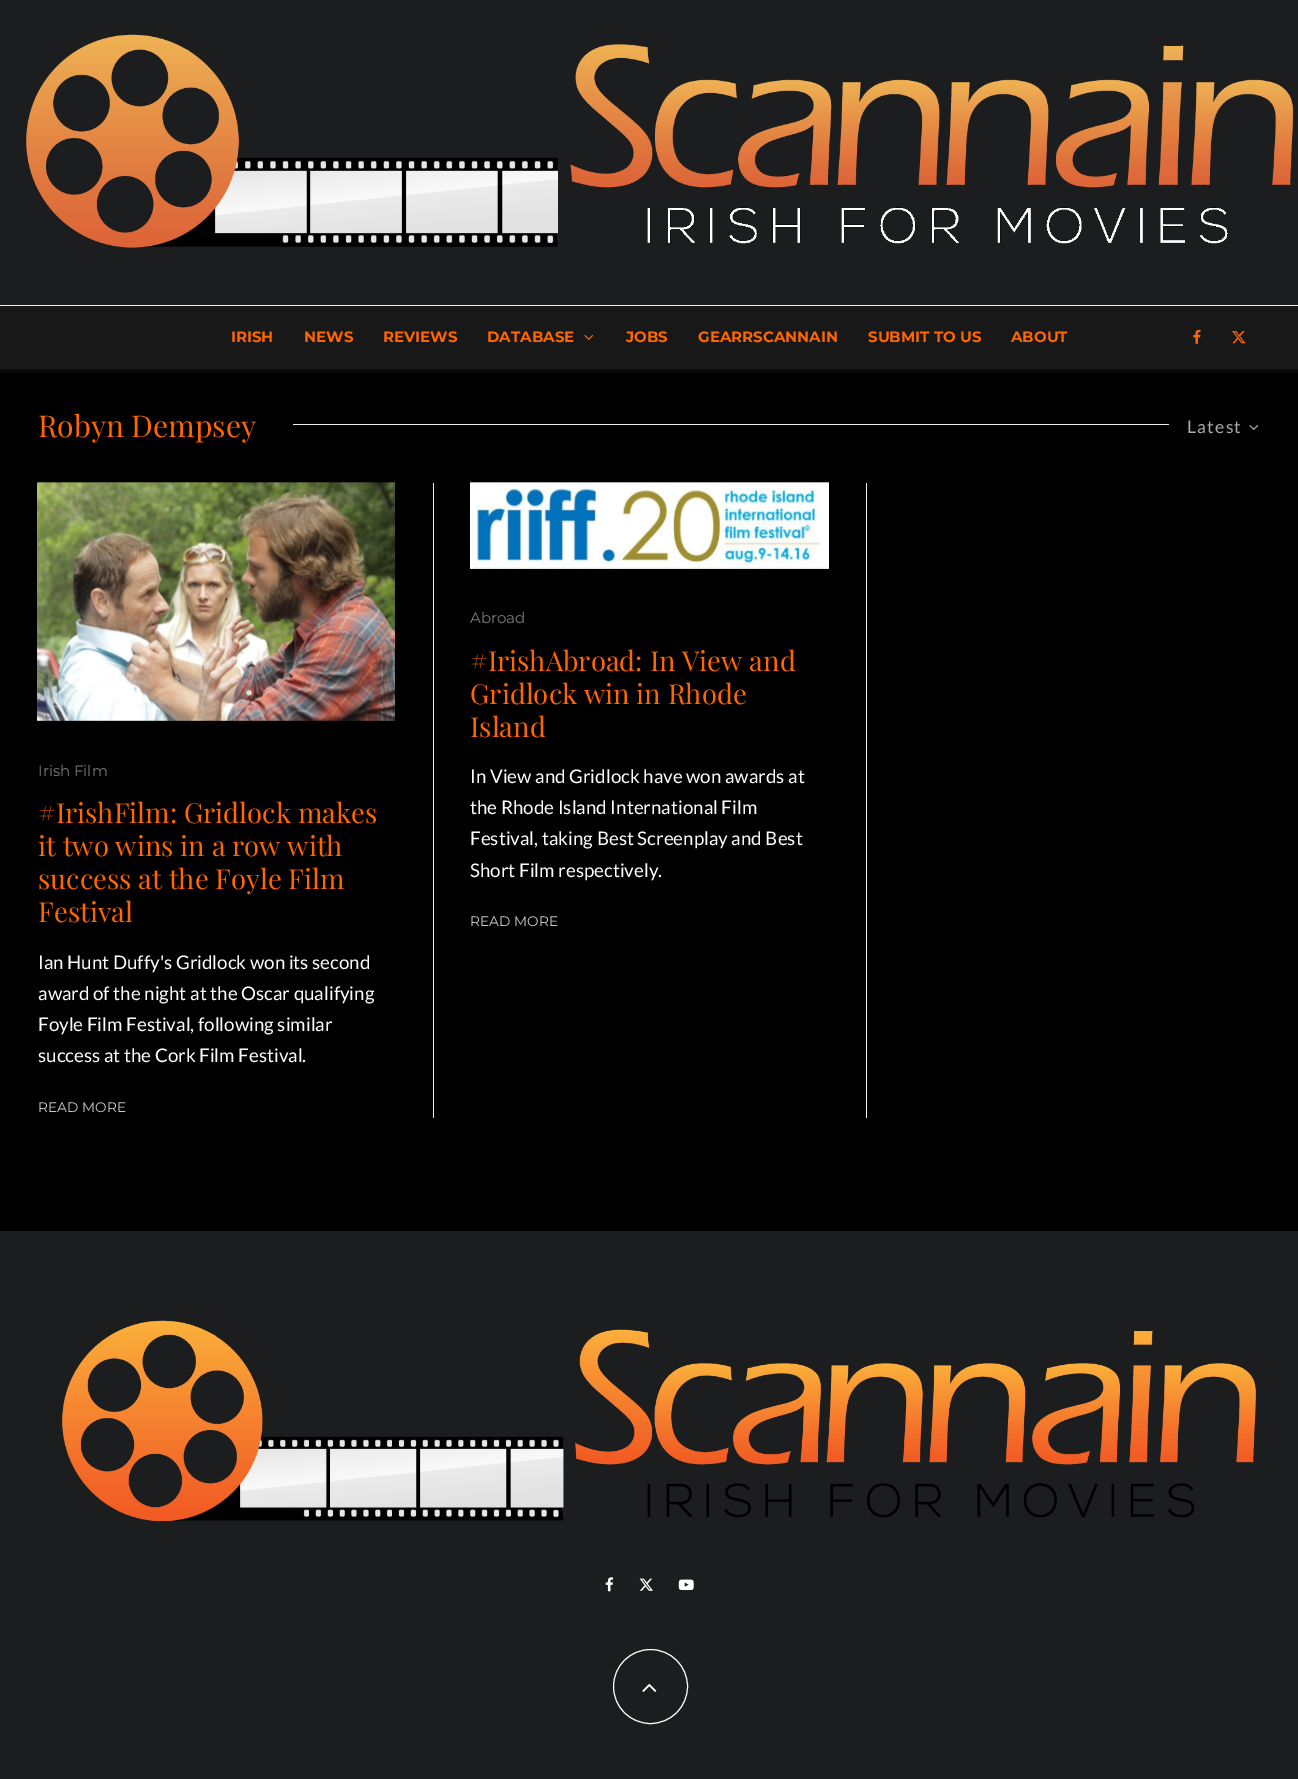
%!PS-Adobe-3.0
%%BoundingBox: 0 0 1298 1779
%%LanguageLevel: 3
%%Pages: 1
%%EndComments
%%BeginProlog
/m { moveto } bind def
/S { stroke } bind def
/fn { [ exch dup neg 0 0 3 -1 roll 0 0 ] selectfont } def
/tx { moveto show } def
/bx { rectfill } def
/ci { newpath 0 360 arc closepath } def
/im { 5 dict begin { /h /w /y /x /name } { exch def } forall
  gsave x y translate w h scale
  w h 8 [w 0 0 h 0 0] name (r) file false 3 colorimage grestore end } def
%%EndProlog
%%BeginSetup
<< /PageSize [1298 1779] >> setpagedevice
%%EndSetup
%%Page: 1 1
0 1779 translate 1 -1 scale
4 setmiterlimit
0 setgray
0 0 1298 1779 bx
0.11 0.114 0.118 setrgbcolor
0 0 1298 305 bx
(image0.raw) 26 34 1268 214 im
0.094 setgray
0 306 1298 63 bx
0.933 setgray
0 305 1298 1 bx
0.039 setgray
0 369 1298 4 bx
/Montserrat-Bold 15 fn
1 0.4 0 setrgbcolor
(IRISH) 231 342 tx
(NEWS) 304 342 tx
(REVIEWS) 383 342 tx
(DATABASE) 487 342 tx
(image1.raw) 584 335 10 5 im
(JOBS) 626 342 tx
(GEARRSCANNAIN) 698 342 tx
(SUBMIT TO US) 868 342 tx
(ABOUT) 1011 342 tx
(image2.raw) 1193 329 8 15 im
(image3.raw) 1232 331 14 13 im
/PlayfairDisplay-Regular 30 fn
(Robyn Dempsey) 38 437 tx
0.933 setgray
293 424 876 1 bx
/Lato-Regular 17.5 fn
0.667 setgray
1187 433 m 1.25 0 (Latest) ashow
(image4.raw) 1249 425 10 5 im
(image5.raw) 37 482 358 239 im
/Montserrat-Regular 15 fn
0.482 setgray
(Irish Film) 38 776 tx
/PlayfairDisplay-Regular 27.5 fn
1 0.4 0 setrgbcolor
(#IrishFilm: Gridlock makes) 38 823 tx
(it two wins in a row with) 38 856 tx
(success at the Foyle Film) 38 889 tx
(Festival) 38 922 tx
/Lato-Regular 18.75 fn
1 setgray
(Ian Hunt Duffy's Gridlock won its second) 38 969 tx
(award of the night at the Oscar qualifying) 38 1000 tx
(Foyle Film Festival, following similar) 38 1031 tx
(success at the Cork Film Festival.) 38 1062 tx
/Montserrat-Regular 13.75 fn
0.788 setgray
(READ MORE) 38 1112 tx
0.933 setgray
433 483 1 635 bx
(image6.raw) 470 482 359 87 im
/Montserrat-Regular 15 fn
0.482 setgray
(Abroad) 470 623 tx
/PlayfairDisplay-Regular 27.5 fn
1 0.4 0 setrgbcolor
(#IrishAbroad: In View and) 470 671 tx
(Gridlock win in Rhode) 470 704 tx
(Island) 470 737 tx
/Lato-Regular 18.75 fn
1 setgray
(In View and Gridlock have won awards at) 470 783 tx
(the Rhode Island International Film) 470 814 tx
(Festival, taking Best Screenplay and Best) 470 845 tx
(Short Film respectively.) 470 877 tx
/Montserrat-Regular 13.75 fn
0.788 setgray
(READ MORE) 470 926 tx
0.933 setgray
866 483 1 635 bx
0.11 0.114 0.118 setrgbcolor
0 1231 1298 548 bx
(image7.raw) 62 1320 1194 202 im
(image8.raw) 605 1577 9 15 im
(image9.raw) 639 1578 14 13 im
(image10.raw) 678 1579 16 12 im
1 setgray
650.5 1686.5 37 ci S
(image11.raw) 642 1683 15 9 im
showpage
%%EOF
